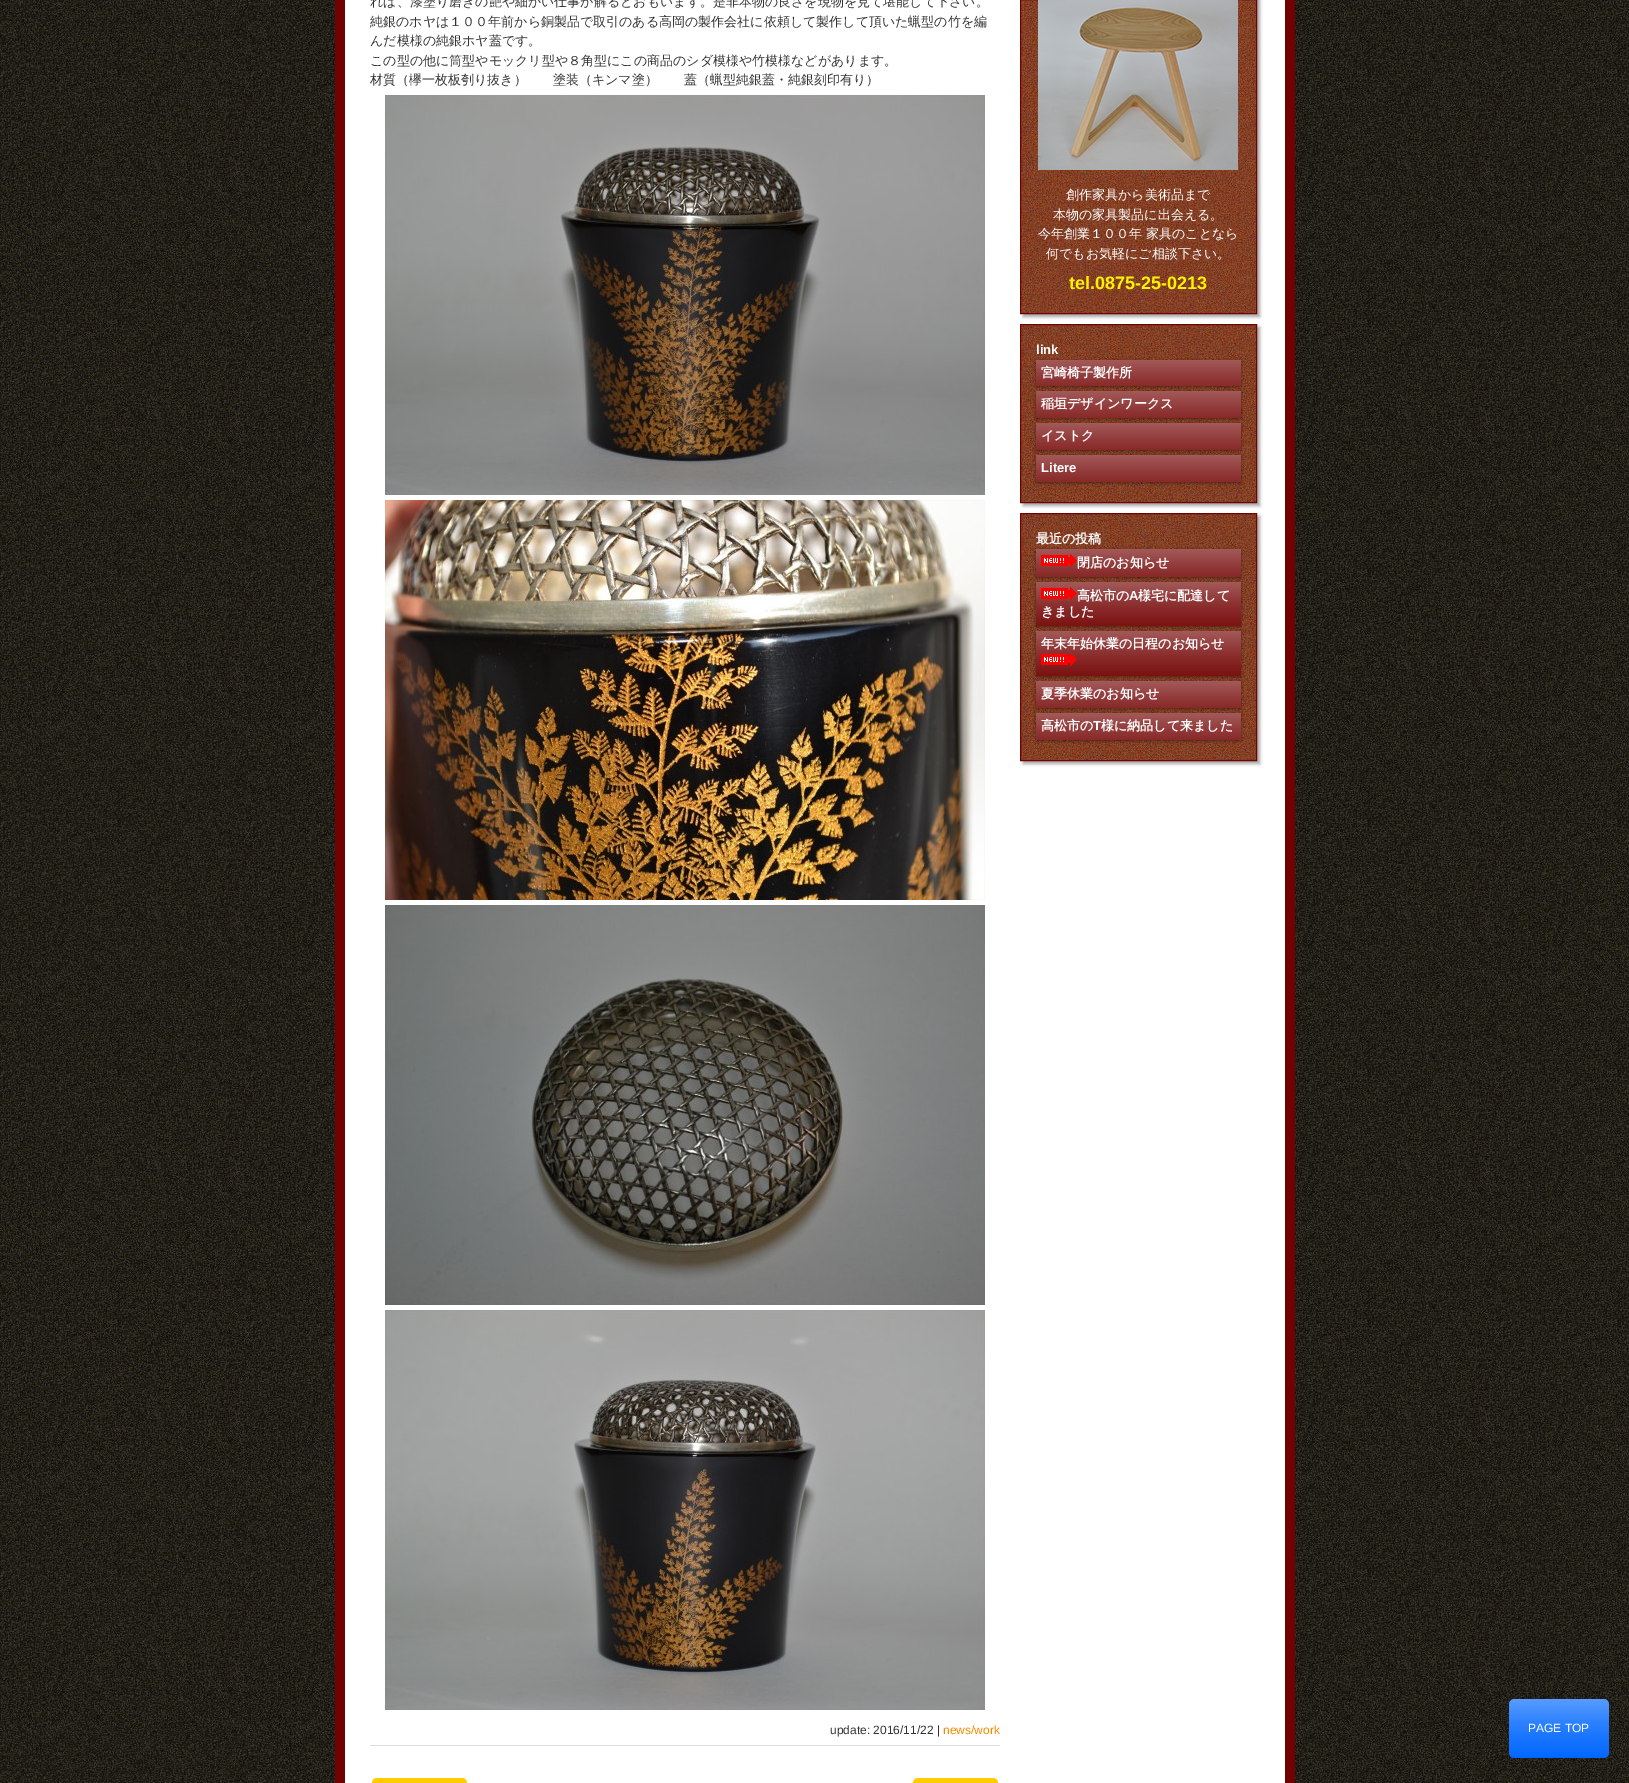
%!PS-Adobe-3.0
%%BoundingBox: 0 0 1629 1783
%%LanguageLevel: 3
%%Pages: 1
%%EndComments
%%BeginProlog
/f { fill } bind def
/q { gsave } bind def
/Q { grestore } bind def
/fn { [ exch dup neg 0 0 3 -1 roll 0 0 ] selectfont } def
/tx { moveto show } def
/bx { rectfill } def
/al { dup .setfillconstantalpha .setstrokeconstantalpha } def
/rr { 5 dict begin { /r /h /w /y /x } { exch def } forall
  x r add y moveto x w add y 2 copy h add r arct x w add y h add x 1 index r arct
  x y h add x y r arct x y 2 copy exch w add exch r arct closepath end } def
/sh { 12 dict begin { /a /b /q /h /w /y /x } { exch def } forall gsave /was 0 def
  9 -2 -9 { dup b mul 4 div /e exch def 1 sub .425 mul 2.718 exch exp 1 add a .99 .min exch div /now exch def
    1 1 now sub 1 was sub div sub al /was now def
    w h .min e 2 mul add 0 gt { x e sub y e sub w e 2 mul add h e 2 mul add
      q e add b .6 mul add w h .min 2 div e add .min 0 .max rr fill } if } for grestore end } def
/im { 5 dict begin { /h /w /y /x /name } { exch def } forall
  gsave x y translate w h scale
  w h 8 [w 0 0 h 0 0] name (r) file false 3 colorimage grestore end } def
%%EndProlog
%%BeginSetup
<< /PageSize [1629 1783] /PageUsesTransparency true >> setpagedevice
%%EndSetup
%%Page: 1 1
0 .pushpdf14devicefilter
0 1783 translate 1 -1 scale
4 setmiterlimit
1 setgray
0 0 1629 1783 bx
(image0.raw) 0 0 1629 1783 im
345 0 940 1783 bx
0.447 0.004 0.004 setrgbcolor
1285 0 10 1783 bx
335 0 10 1783 bx
/WenQuanYiZenHei-Medium 13 fn
0.2 setgray
(れば、漆塗り磨きの艶や細かい仕事が解るとおもいます。是非本物の良さを現物を見て堪能して下さい。) 370 6 tx
q
370 0 630 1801 rectclip
(純銀のホヤは１００年前から銅製品で取引のある高岡の製作会社に依頼して製作して頂いた蝋型の竹を編) 370 26 tx
Q
(んだ模様の純銀ホヤ蓋です。) 370 45 tx
(この型の他に筒型やモックリ型や８角型にこの商品のシダ模様や竹模様などがあります。) 370 65 tx
(材質（欅一枚板刳り抜き）　　塗装（キンマ塗）　　蓋（蝋型純銀蓋・純銀刻印有り）) 370 84 tx
(image1.raw) 385 95 600 400 im
(image2.raw) 385 500 600 400 im
(image3.raw) 385 905 600 400 im
(image4.raw) 385 1310 600 400 im
/LiberationSans-Regular 12 fn
(update: 2016/11/22 |) 830 1734 tx
0.953 0.541 0.004 setrgbcolor
(news/work) 943 1734 tx
0.867 setgray
370 1745 630 1 bx
1 0.8 0 setrgbcolor
372 1778 95 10 5 rr f
913 1778 85 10 5 rr f
0.667 setgray
1023 -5 237 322 0 1.5 1 sh
(image5.raw) 1021 0 235 313 im
0.447 0.004 0.004 setrgbcolor
1020.5 -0.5 236 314 rectstroke
(image6.raw) 1038 0 200 170 im
/WenQuanYiZenHei-Medium 13 fn
1 setgray
(創作家具から美術品まで) 1066 199 tx
(本物の家具製品に出会える。) 1053 219 tx
(今年創業１００年 家具のことなら) 1038 238 tx
(何でもお気軽にご相談下さい。) 1046 258 tx
/LiberationSans-Bold 18 fn
1 0.945 0 setrgbcolor
(tel.0875-25-0213) 1069 289 tx
0.667 setgray
1023 327 237 179 0 1.5 1 sh
(image7.raw) 1021 325 235 177 im
0.447 0.004 0.004 setrgbcolor
1020.5 324.5 236 178 rectstroke
/LiberationSans-Bold 13 fn
1 setgray
(link) 1036 354 tx
0 setgray
1036 361 205 26 0 1.5 0.4 sh
0.447 0.004 0.004 setrgbcolor
1036 360 205 26 bx
(image8.raw) 1036 360 205 26 im
/WenQuanYiZenHei-Bold 13 fn
1 setgray
(宮崎椅子製作所) 1041 377 tx
0 setgray
1036 392 205 27 0 1.5 0.4 sh
0.447 0.004 0.004 setrgbcolor
1036 391 205 27 bx
(image9.raw) 1036 391 205 27 im
1 setgray
(稲垣デザインワークス) 1041 408 tx
0 setgray
1036 424 205 27 0 1.5 0.4 sh
0.447 0.004 0.004 setrgbcolor
1036 423 205 27 bx
(image9.raw) 1036 423 205 27 im
1 setgray
(イストク) 1041 440 tx
0 setgray
1036 456 205 27 0 1.5 0.4 sh
0.447 0.004 0.004 setrgbcolor
1036 455 205 27 bx
(image9.raw) 1036 455 205 27 im
/LiberationSans-Bold 13 fn
1 setgray
(Litere) 1041 472 tx
0.667 setgray
1023 516 237 248 0 1.5 1 sh
(image10.raw) 1021 514 235 246 im
0.447 0.004 0.004 setrgbcolor
1020.5 513.5 236 247 rectstroke
/WenQuanYiZenHei-Bold 13 fn
1 setgray
(最近の投稿) 1036 543 tx
0 setgray
1036 550 205 28 0 1.5 0.4 sh
0.447 0.004 0.004 setrgbcolor
1036 549 205 28 bx
(image11.raw) 1036 549 205 28 im
(image12.raw) 1041 554 36 13 im
1 setgray
(閉店のお知らせ) 1077 567 tx
0 setgray
1036 583 205 44 0 1.5 0.4 sh
0.447 0.004 0.004 setrgbcolor
1036 582 205 44 bx
(image13.raw) 1036 582 205 44 im
(image12.raw) 1041 587 36 13 im
1 setgray
(高松市の) 1077 600 tx
/LiberationSans-Bold 13 fn
(A) 1129 600 tx
/WenQuanYiZenHei-Bold 13 fn
(様宅に配達して) 1138 600 tx
(きました) 1041 616 tx
0 setgray
1036 632 205 45 0 1.5 0.4 sh
0.447 0.004 0.004 setrgbcolor
1036 631 205 45 bx
(image14.raw) 1036 631 205 45 im
1 setgray
(年末年始休業の日程のお知らせ) 1041 648 tx
(image15.raw) 1041 653 36 13 im
0 setgray
1036 682 205 27 0 1.5 0.4 sh
0.447 0.004 0.004 setrgbcolor
1036 681 205 27 bx
(image9.raw) 1036 681 205 27 im
1 setgray
(夏季休業のお知らせ) 1041 698 tx
0 setgray
1036 714 205 27 0 1.5 0.4 sh
0.447 0.004 0.004 setrgbcolor
1036 713 205 27 bx
(image9.raw) 1036 713 205 27 im
1 setgray
(高松市の) 1041 730 tx
/LiberationSans-Bold 13 fn
(T) 1093 730 tx
/WenQuanYiZenHei-Bold 13 fn
(様に納品して来ました) 1101 730 tx
0 0.4 1 setrgbcolor
1509 1699 100 59 5 rr f
(image16.raw) 1509 1699 100 57 im
/LiberationSans-Regular 12 fn
1 setgray
(PAGE TOP) 1528 1732 tx
.poppdf14devicefilter showpage
%%EOF
